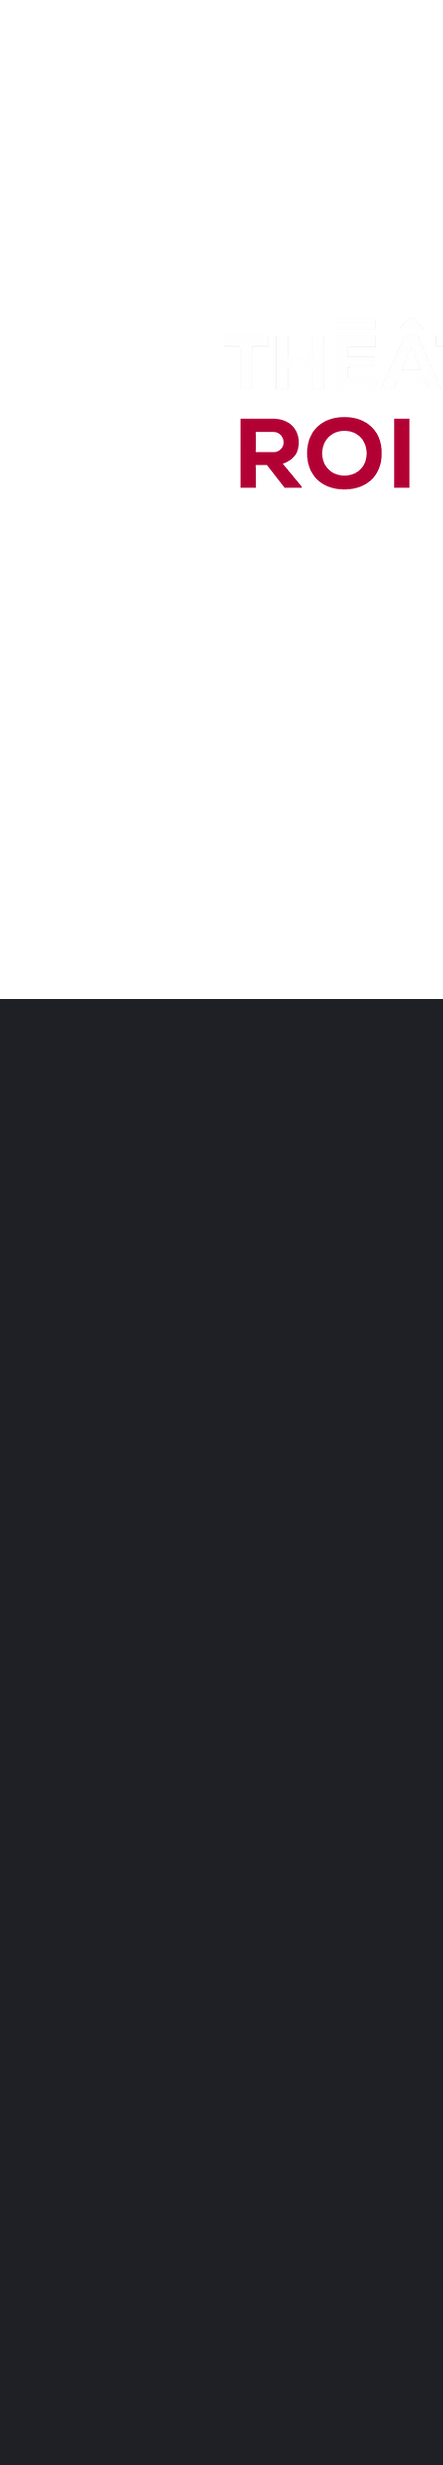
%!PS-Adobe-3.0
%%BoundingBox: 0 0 443 2465
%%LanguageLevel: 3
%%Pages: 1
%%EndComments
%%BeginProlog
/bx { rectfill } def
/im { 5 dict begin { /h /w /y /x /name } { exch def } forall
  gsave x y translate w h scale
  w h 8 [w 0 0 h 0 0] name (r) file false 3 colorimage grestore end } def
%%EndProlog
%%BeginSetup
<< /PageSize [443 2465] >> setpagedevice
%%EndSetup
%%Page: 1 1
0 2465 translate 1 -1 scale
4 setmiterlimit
0.118 0.125 0.145 setrgbcolor
0 0 443 2465 bx
1 setgray
0 0 443 999 bx
(image0.raw) 224 317 219 173 im
showpage
%%EOF
